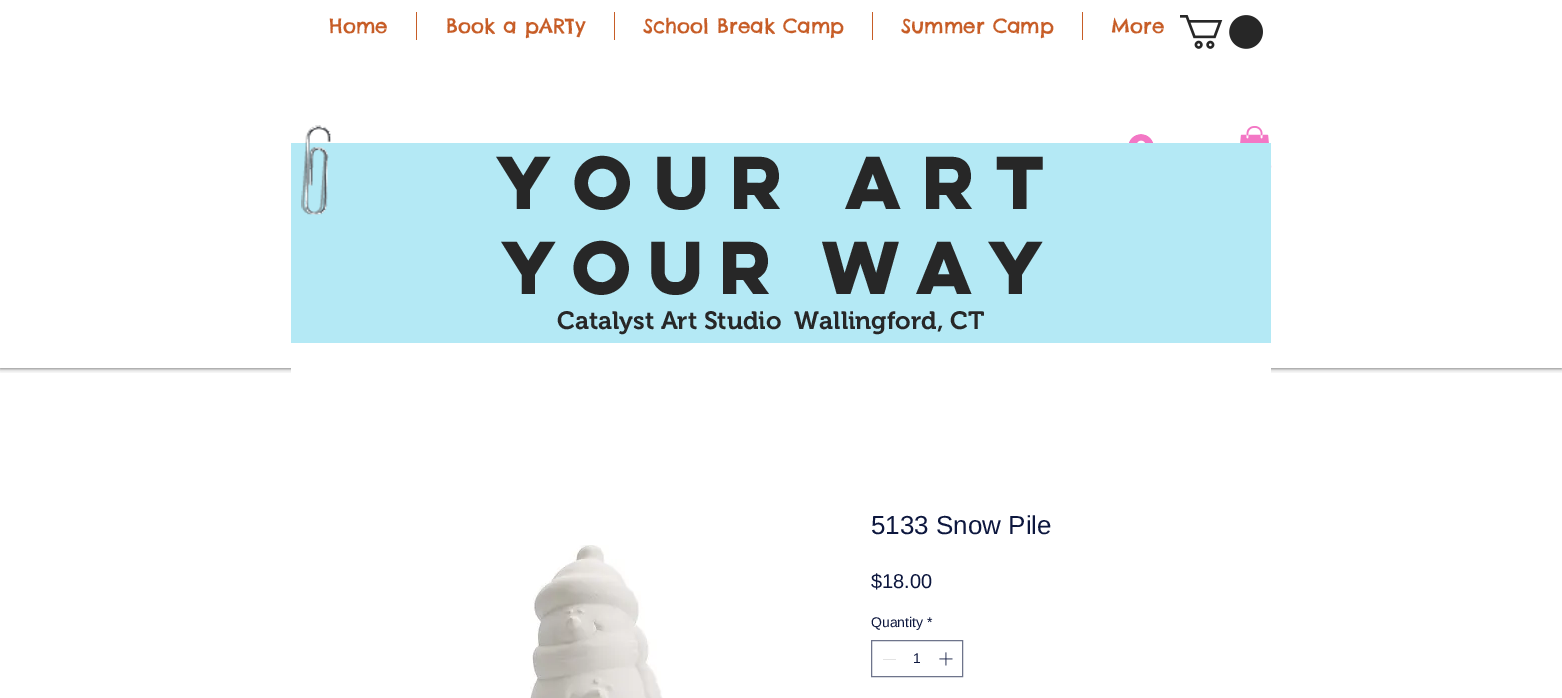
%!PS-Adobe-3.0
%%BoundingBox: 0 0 1562 698
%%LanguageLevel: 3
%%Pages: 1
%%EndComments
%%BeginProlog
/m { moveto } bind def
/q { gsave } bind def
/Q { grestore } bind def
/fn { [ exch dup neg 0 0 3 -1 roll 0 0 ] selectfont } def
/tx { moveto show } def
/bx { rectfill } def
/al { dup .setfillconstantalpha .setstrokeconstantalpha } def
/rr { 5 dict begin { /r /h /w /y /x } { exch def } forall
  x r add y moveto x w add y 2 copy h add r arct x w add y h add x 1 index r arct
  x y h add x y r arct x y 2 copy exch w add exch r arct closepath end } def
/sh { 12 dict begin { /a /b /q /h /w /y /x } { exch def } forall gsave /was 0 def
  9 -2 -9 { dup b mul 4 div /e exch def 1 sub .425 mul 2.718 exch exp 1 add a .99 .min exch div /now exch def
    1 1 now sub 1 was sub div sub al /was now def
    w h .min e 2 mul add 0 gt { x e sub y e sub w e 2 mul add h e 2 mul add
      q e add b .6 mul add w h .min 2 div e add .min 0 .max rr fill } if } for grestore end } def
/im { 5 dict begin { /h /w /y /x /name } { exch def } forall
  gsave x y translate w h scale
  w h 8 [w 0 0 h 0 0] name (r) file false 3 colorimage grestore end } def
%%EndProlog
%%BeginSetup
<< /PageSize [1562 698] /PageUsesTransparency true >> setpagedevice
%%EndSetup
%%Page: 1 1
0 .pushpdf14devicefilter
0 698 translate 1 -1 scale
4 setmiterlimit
1 setgray
0 0 1562 698 bx
q
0 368 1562 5 rectclip
0 setgray
0 0 1562 368 0 2.5 0.7 sh
Q
(image0.raw) 1128 134 26 9 im
(image1.raw) 1240 126 32 42 im
/ChelseaMarket-Regular 20 fn
0.78 0.365 0.153 setrgbcolor
(Home) 329 33 tx
416 12 1 28 bx
(Book a pARTy) 446 33 tx
614 12 1 28 bx
(School Break Camp) 643 33 tx
872 12 1 28 bx
(Summer Camp) 901 33 tx
1082 12 1 28 bx
(More) 1111 33 tx
(image2.raw) 1180 15 83 34 im
0.706 0.914 0.961 setrgbcolor
291 143 980 200 bx
(image3.raw) 301 125 30 90 im
/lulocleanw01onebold-Bold 67 fn
0.153 setgray
496 209 m 6.75 0 (yOUR Art) ashow
501 294 m 1.25 0 (yOUR Way) ashow
/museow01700-SemiBold 25 fn
(Catalyst Art Studio  Wallingford, CT) 557 329 tx
1 setgray
291 368 980 5 bx
(image4.raw) 530 545 133 153 im
/LiberationSans-Regular 26 fn
0.051 0.09 0.243 setrgbcolor
(5133 Snow Pile) 871 534 tx
/LiberationSans-Regular 20 fn
($18.00) 871 588 tx
/LiberationSans-Regular 14 fn
(Quantity *) 871 627 tx
0.431 0.455 0.545 setrgbcolor
871.5 640.5 91 36 rectstroke
0.89 setgray
883 659 13 1 bx
0.051 0.09 0.243 setrgbcolor
(1) 913 663 tx
(image5.raw) 939 652 14 14 im
.poppdf14devicefilter showpage
%%EOF
